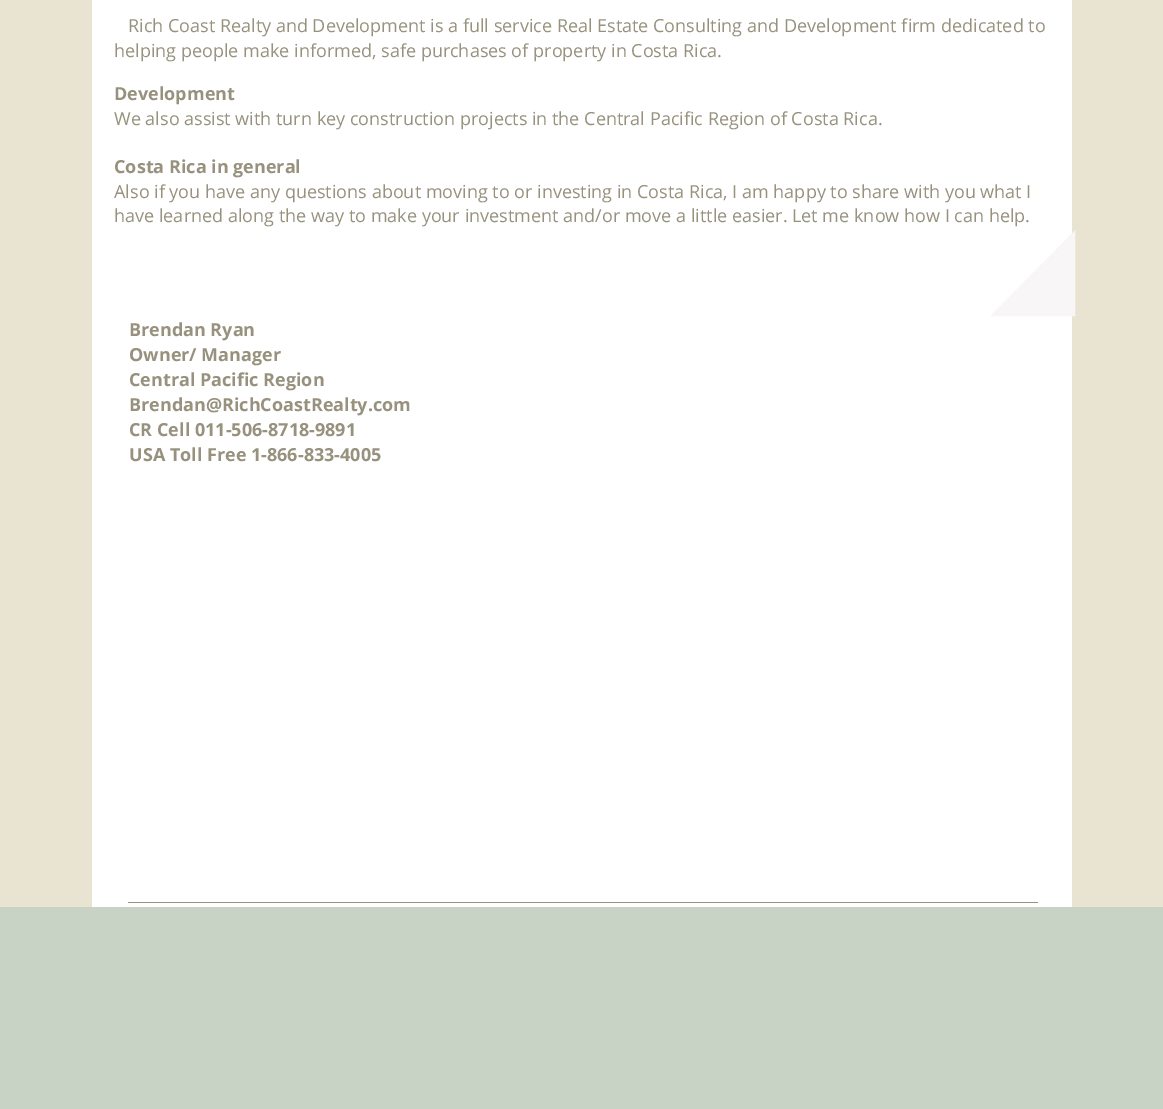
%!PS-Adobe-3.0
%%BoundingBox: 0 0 1163 1109
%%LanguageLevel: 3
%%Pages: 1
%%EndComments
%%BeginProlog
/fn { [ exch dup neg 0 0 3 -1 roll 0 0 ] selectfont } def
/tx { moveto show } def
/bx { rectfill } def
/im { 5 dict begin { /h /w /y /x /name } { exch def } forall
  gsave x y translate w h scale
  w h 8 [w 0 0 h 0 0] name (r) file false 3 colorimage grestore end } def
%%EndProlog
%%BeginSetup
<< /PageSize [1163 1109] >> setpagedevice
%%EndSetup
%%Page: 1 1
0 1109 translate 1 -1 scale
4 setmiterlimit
0.914 0.894 0.82 setrgbcolor
0 0 1163 1109 bx
1 setgray
92 0 980 907 bx
/OpenSans-Regular 18 fn
0.592 0.569 0.49 setrgbcolor
(Rich Coast Realty and Development is a full service Real Estate Consulting and Development firm dedicated to) 128 32 tx
(helping people make informed, safe purchases of property in Costa Rica.) 114 57 tx
/OpenSans-Bold 18 fn
(Development) 114 100 tx
/OpenSans-Regular 18 fn
(We also assist with turn key construction projects in the Central Pacific Region of Costa Rica.) 114 125 tx
/OpenSans-Bold 18 fn
(Costa Rica in general) 114 173 tx
/OpenSans-Regular 18 fn
(Also if you have any questions about moving to or investing in Costa Rica, I am happy to share with you what I) 114 198 tx
(have learned along the way to make your investment and/or move a little easier. Let me know how I can help.) 114 222 tx
(image0.raw) 991 230 85 87 im
/OpenSans-Bold 18 fn
(Brendan Ryan) 129 336 tx
(Owner/ Manager) 129 361 tx
(Central Pacific Region) 129 386 tx
(Brendan@RichCoastRealty.com) 129 411 tx
(CR Cell 011-506-8718-9891) 129 436 tx
(USA Toll Free 1-866-833-4005) 129 461 tx
128 902 910 1 bx
0.788 0.827 0.773 setrgbcolor
0 907 1163 202 bx
showpage
%%EOF
